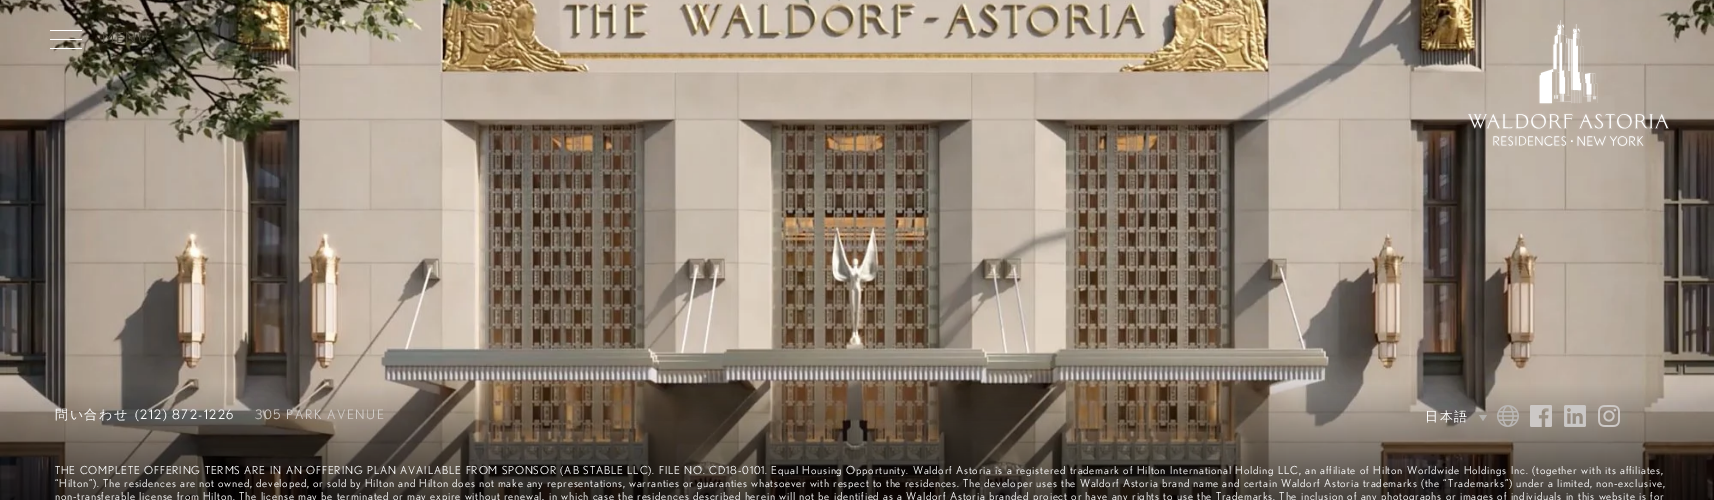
%!PS-Adobe-3.0
%%BoundingBox: 0 0 1714 500
%%LanguageLevel: 3
%%Pages: 1
%%EndComments
%%BeginProlog
/m { moveto } bind def
/l { lineto } bind def
/h { closepath } bind def
/f { fill } bind def
/fn { [ exch dup neg 0 0 3 -1 roll 0 0 ] selectfont } def
/bx { rectfill } def
/im { 5 dict begin { /h /w /y /x /name } { exch def } forall
  gsave x y translate w h scale
  w h 8 [w 0 0 h 0 0] name (r) file false 3 colorimage grestore end } def
%%EndProlog
%%BeginSetup
<< /PageSize [1714 500] >> setpagedevice
%%EndSetup
%%Page: 1 1
0 500 translate 1 -1 scale
4 setmiterlimit
1 setgray
0 0 1714 500 bx
(image1.raw) 0 0 1714 500 im
50 30 32 1 bx
50 39 32 1 bx
50 48 32 1 bx
/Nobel-Regular 15 fn
0.298 0.282 0.231 setrgbcolor
102 43 m 1.5 0 (MENU) ashow
(image0.raw) 1468 20 201 127 im
/WenQuanYiZenHei-Medium 13 fn
1 setgray
55 419 m 1.5 0 (問い合わせ) ashow
/Nobel-Regular 13 fn
135 419 m 1.5 0 (\(212\) 872-1226) ashow
0.82 0.8 0.784 setrgbcolor
255 419 m 1.5 0 (305 PARK AVENUE) ashow
/WenQuanYiZenHei-Medium 13 fn
1 setgray
1425 421 m 1.5 0 (日本語) ashow
0.702 0.694 0.678 setrgbcolor
1479 415 m 1487 415 l 1483 421 l h f
(image2.raw) 1497 405 22 22 im
(image3.raw) 1530 405 22 22 im
(image4.raw) 1564 405 22 22 im
(image5.raw) 1598 405 22 22 im
/Nobel-Regular 11 fn
1 setgray
55 474 m 0.9 0 32 0.8 0 (THE COMPLETE OFFERING TERMS ARE IN AN OFFERING PLAN AVAILABLE FROM SPONSOR \(AB STABLE LLC\). FILE NO. CD18-0101. Equal Housing Opportunity. Waldorf Astoria is a registered trademark of Hilton International Holding LLC, an affiliate of Hilton Worldwide Holdings Inc. \(together with its affiliates,) awidthshow
55 487 m 0.55 0 32 0.8 0 (“Hilton”\). The residences are not owned, developed, or sold by Hilton and Hilton does not make any representations, warranties or guaranties whatsoever with respect to the residences. The developer uses the Waldorf Astoria brand name and certain Waldorf Astoria trademarks \(the “Trademarks”\) under a limited, non-exclusive,) awidthshow
55 500 m 0.82 0 32 0.8 0 (non-transferable license from Hilton. The license may be terminated or may expire without renewal, in which case the residences described herein will not be identified as a Waldorf Astoria branded project or have any rights to use the Trademarks. The inclusion of any photographs or images of individuals in this website is for) awidthshow
showpage
%%EOF
